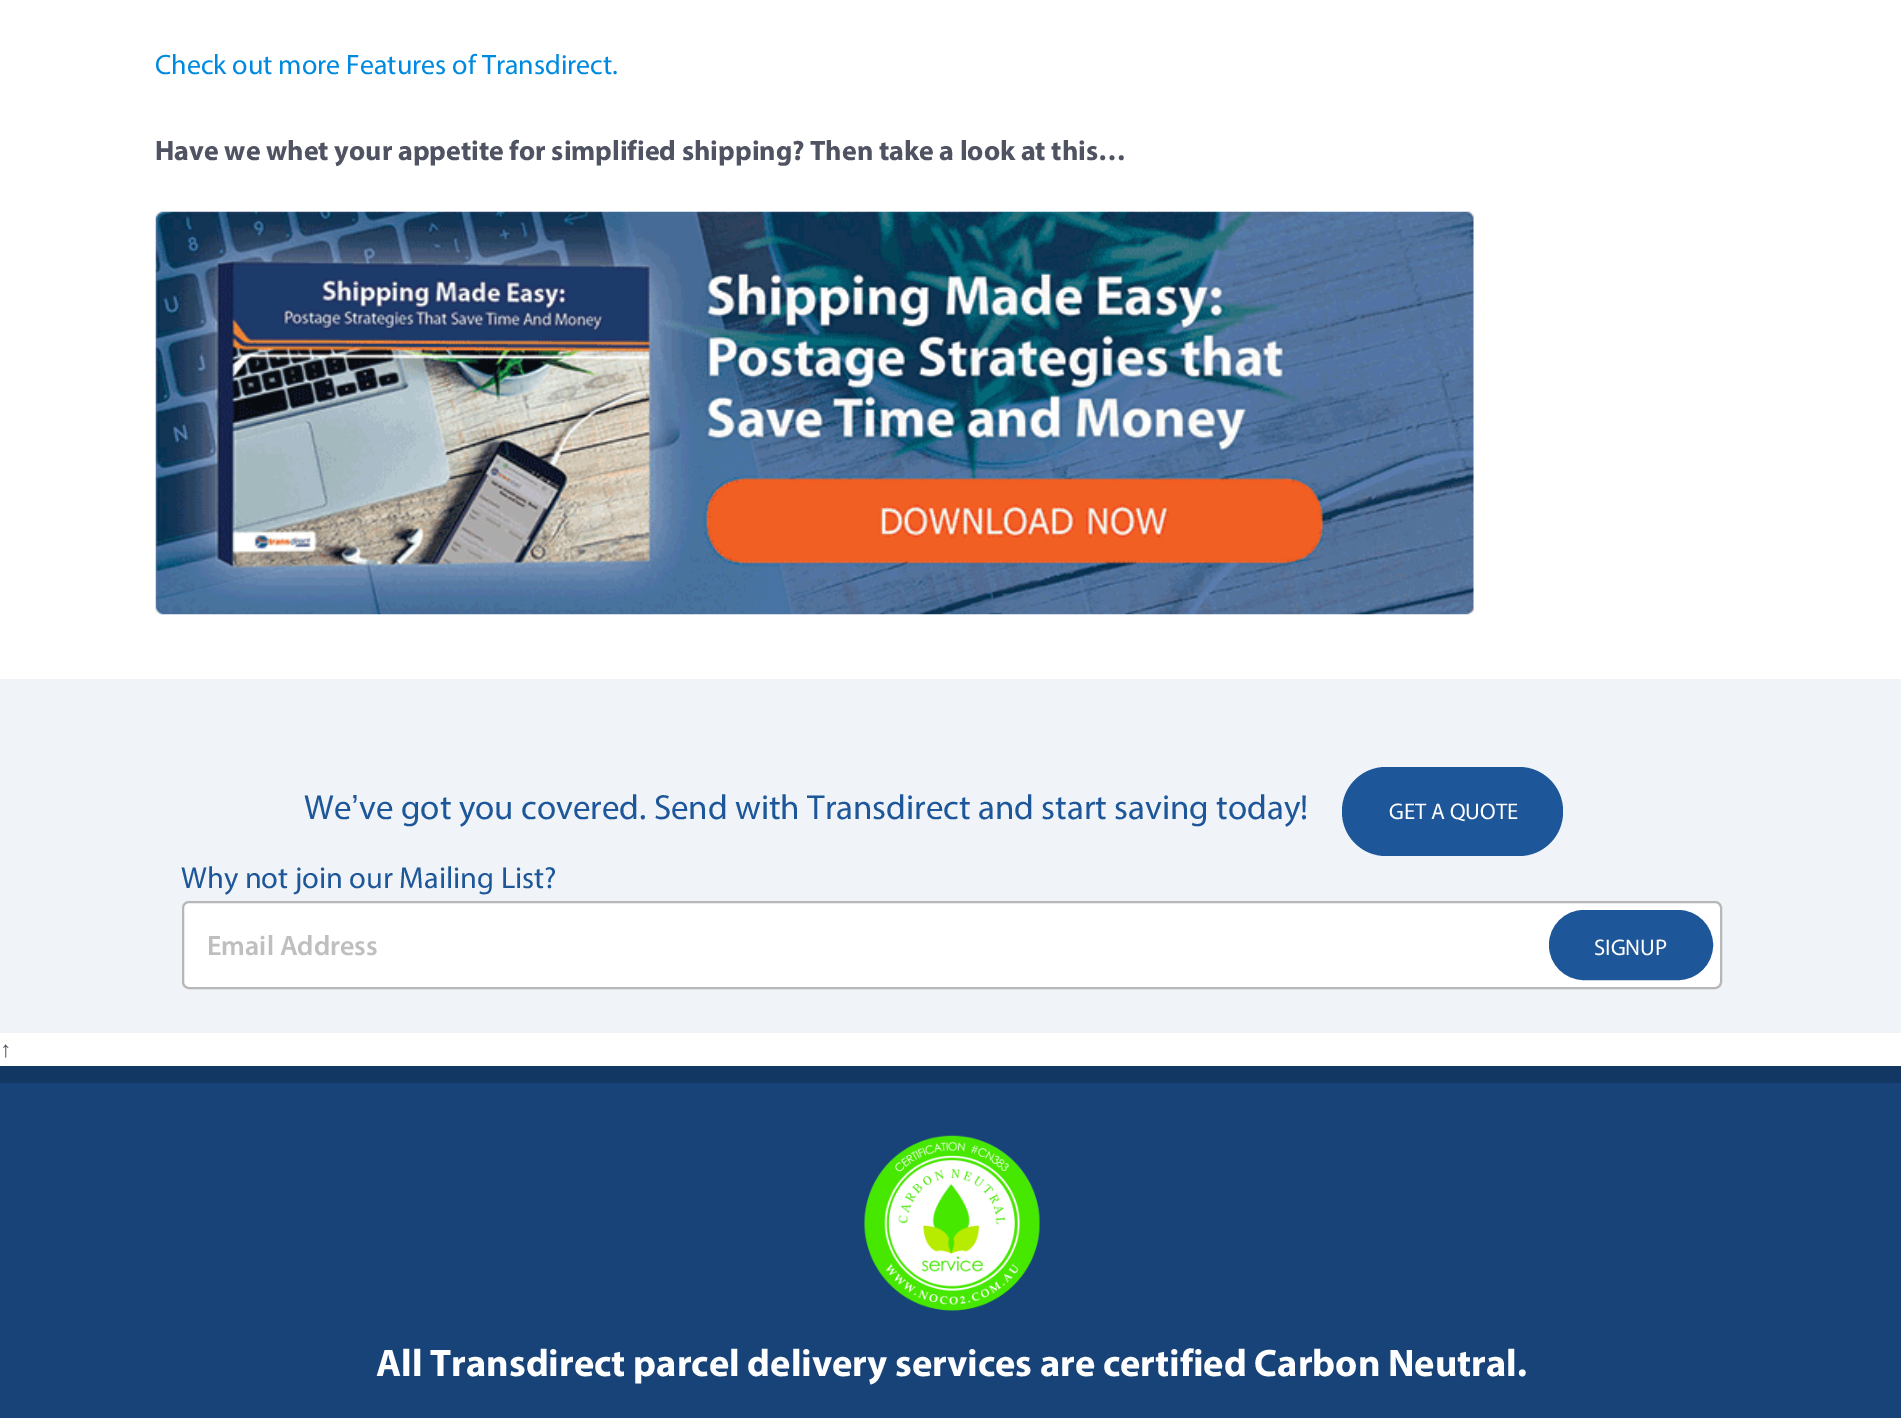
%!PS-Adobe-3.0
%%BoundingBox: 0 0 1901 1418
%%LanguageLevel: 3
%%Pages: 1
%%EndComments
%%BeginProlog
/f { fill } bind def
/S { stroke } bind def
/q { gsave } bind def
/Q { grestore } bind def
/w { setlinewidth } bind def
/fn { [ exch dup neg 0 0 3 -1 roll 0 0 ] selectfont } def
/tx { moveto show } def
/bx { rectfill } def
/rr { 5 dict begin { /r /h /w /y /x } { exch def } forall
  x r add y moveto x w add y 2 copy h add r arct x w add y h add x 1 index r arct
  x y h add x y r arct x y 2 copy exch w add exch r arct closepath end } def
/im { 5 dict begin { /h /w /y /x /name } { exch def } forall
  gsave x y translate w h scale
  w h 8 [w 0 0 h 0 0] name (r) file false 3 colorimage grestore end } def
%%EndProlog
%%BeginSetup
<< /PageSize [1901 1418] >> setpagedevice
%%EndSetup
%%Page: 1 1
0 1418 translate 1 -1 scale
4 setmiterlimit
1 setgray
0 0 1901 1418 bx
/Myriad-Regular 28 fn
0 0.541 0.875 setrgbcolor
(Check out more Features of Transdirect.) 155 74 tx
/Myriad-Bold 28 fn
0.31 0.325 0.384 setrgbcolor
(Have we whet your appetite for simplified shipping? Then take a look at this…) 155 160 tx
(image0.raw) 155 211 1319 404 im
0.941 0.957 0.973 setrgbcolor
0 679 1901 354 bx
/Myriad-Regular 35 fn
0.118 0.341 0.6 setrgbcolor
(We) 304 819 tx
/LiberationSans-Regular 35 fn
(’) 351 819 tx
/Myriad-Regular 35 fn
(ve got you covered. Send with Transdirect and start saving today!) 359 819 tx
1342 767 221 89 44 rr f
/Myriad-Regular 22.75 fn
1 setgray
(GET A QUOTE) 1389 819 tx
/Myriad-Regular 30.5 fn
0.118 0.341 0.6 setrgbcolor
(Why not join our Mailing List?) 181 888 tx
1 setgray
183 902 1538 86 6 rr q f Q
0.718 setgray
2 w
S
/Myriad-SemiBold 28 fn
0.749 setgray
(Email Address) 207 955 tx
0.118 0.341 0.6 setrgbcolor
1551 912 160 66 33 rr q f Q
4 w
S
/Myriad-Regular 22.75 fn
1 setgray
(SIGNUP) 1594 955 tx
/LiberationSans-Regular 22.75 fn
0.31 0.325 0.384 setrgbcolor
(↑) 0 1057 tx
0.09 0.263 0.471 setrgbcolor
0 1083 1901 335 bx
0.071 0.216 0.384 setrgbcolor
0 1066 1901 17 bx
(image1.raw) 864 1135 176 176 im
/Myriad-Bold 38.5 fn
1 setgray
(All Transdirect parcel delivery services are certified Carbon Neutral.) 376 1376 tx
showpage
%%EOF
